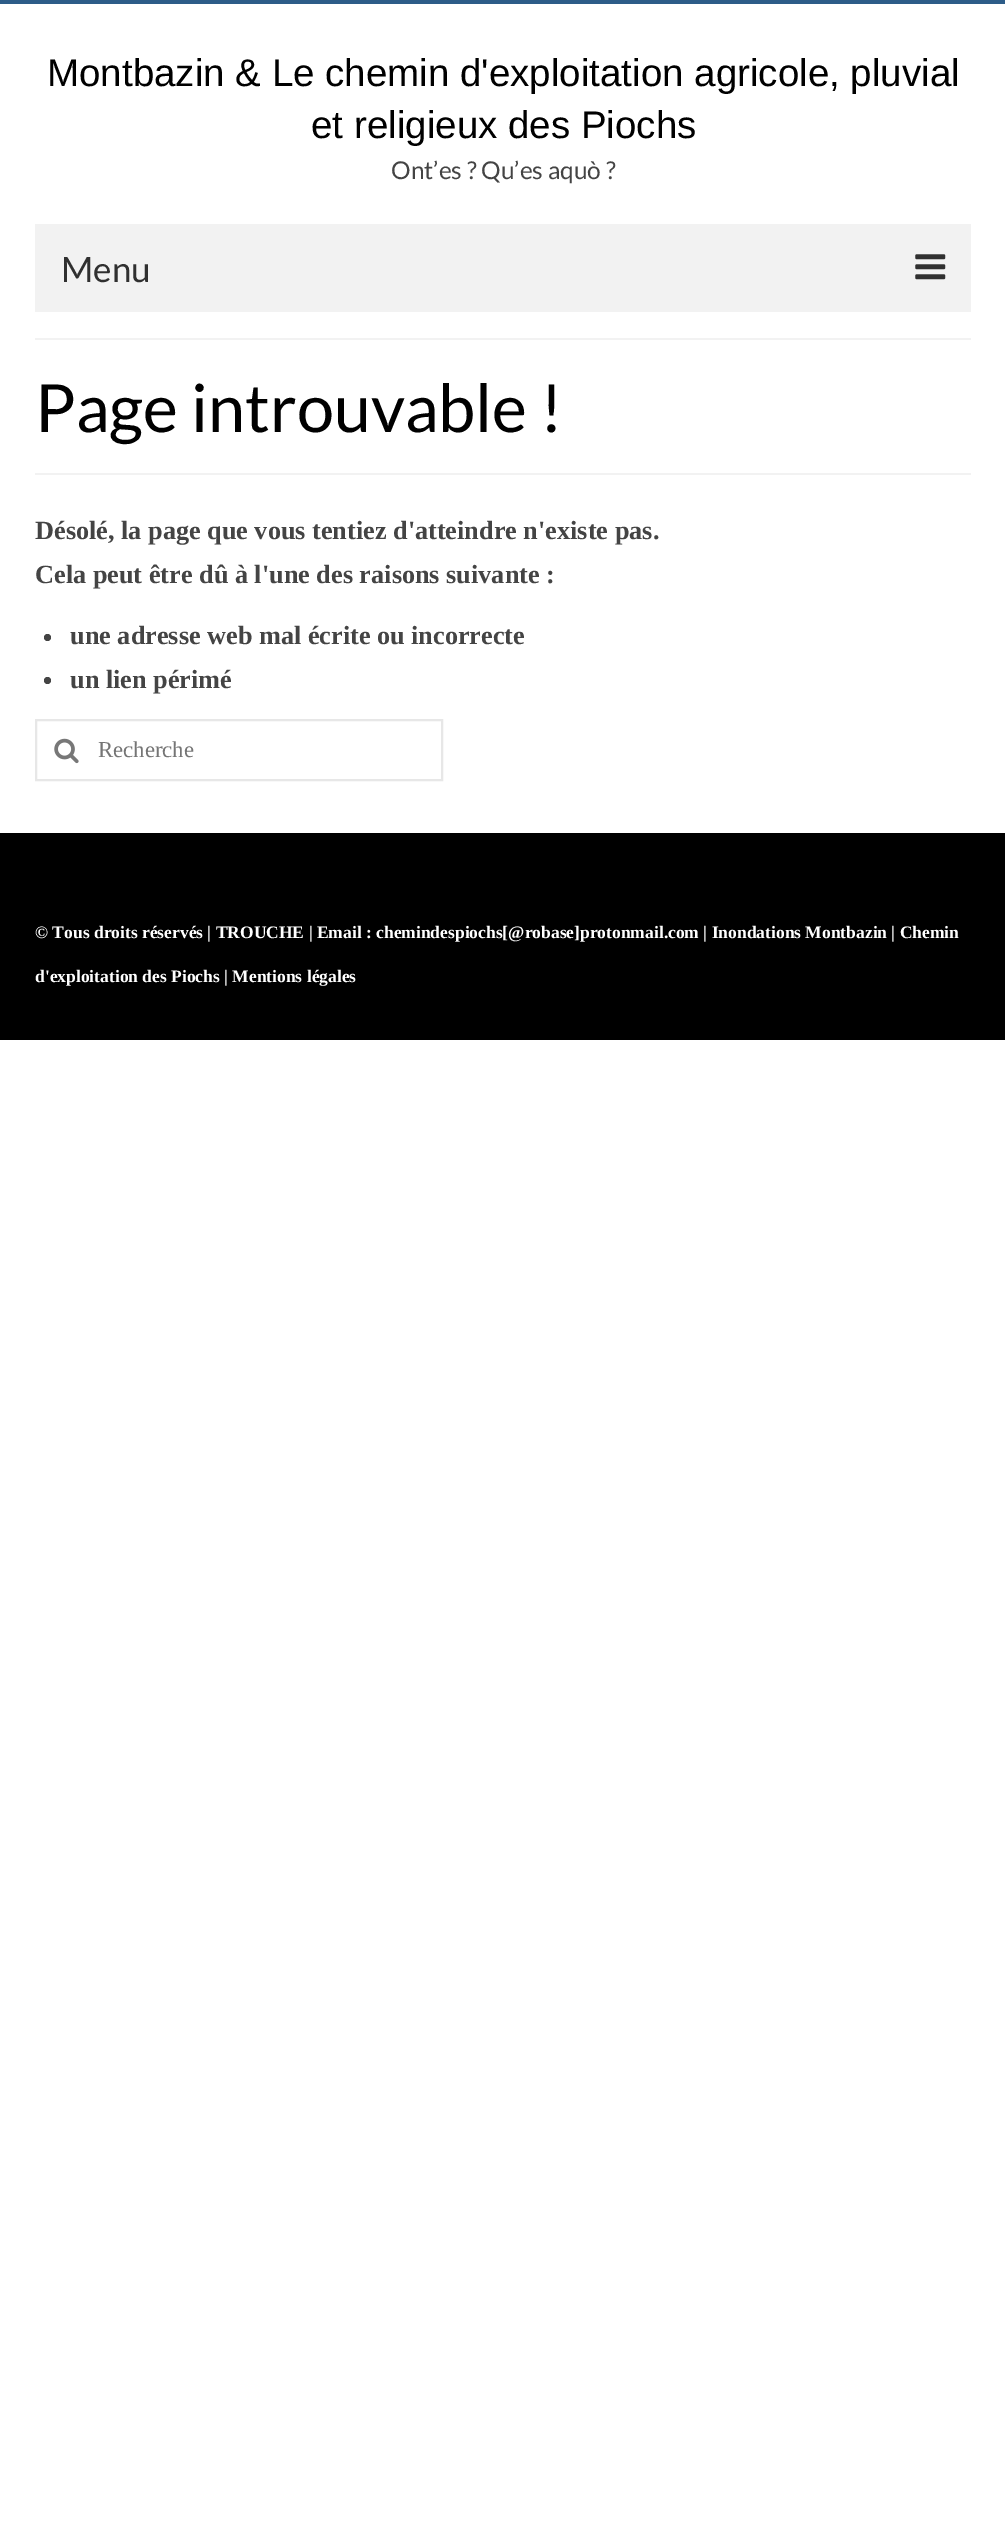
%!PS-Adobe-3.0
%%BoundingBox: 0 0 1005 2545
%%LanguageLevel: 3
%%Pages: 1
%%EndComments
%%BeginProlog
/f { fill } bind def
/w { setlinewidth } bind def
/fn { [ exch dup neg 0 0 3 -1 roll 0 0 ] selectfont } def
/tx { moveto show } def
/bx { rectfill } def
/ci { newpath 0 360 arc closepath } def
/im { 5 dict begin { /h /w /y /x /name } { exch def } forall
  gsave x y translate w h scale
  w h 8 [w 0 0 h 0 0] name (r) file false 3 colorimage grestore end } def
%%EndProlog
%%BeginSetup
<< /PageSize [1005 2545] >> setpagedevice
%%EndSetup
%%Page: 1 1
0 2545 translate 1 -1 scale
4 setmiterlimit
1 setgray
0 0 1005 2545 bx
0.176 0.361 0.533 setrgbcolor
0 0 1005 4 bx
/LiberationSans-Regular 38.5 fn
0 setgray
(Montbazin & Le chemin d'exploitation agricole, pluvial) 47 86 tx
(et religieux des Piochs) 311 138 tx
/Lato-Regular 24.5 fn
0.267 setgray
(Ont’es ? Qu’es aquò ?) 391 179 tx
0.949 setgray
35 224 936 88 bx
/Lato-Regular 35 fn
0.188 setgray
(Menu) 61 282 tx
(image0.raw) 915 254 31 26 im
0.949 setgray
35 338 936 2 bx
35 473 936 2 bx
/Lato-Regular 66.5 fn
0 setgray
(Page introuvable !) 35 432 tx
/LiberationSerif-Bold 26.25 fn
0.267 setgray
(Désolé, la page que vous tentiez d'atteindre n'existe pas.) 35 539 tx
(Cela peut être dû à l'une des raisons suivante :) 35 583 tx
47.5 637.5 3.5 ci f
(une adresse web mal écrite ou incorrecte) 70 644 tx
47.5 680.5 3.5 ci f
(un lien périmé) 70 688 tx
0.906 setgray
2 w
36 720 406 60 rectstroke
(image1.raw) 54 738 25 26 im
/LiberationSerif-Regular 22.75 fn
0.459 setgray
(Recherche) 98 757 tx
0 setgray
0 833 1005 207 bx
/LiberationSerif-Bold 17.5 fn
1 setgray
(© Tous droits réservés | TROUCHE | Email : chemindespiochs[@robase]protonmail.com | Inondations Montbazin | Chemin) 35 938 tx
(d'exploitation des Piochs | Mentions légales) 35 982 tx
showpage
%%EOF
